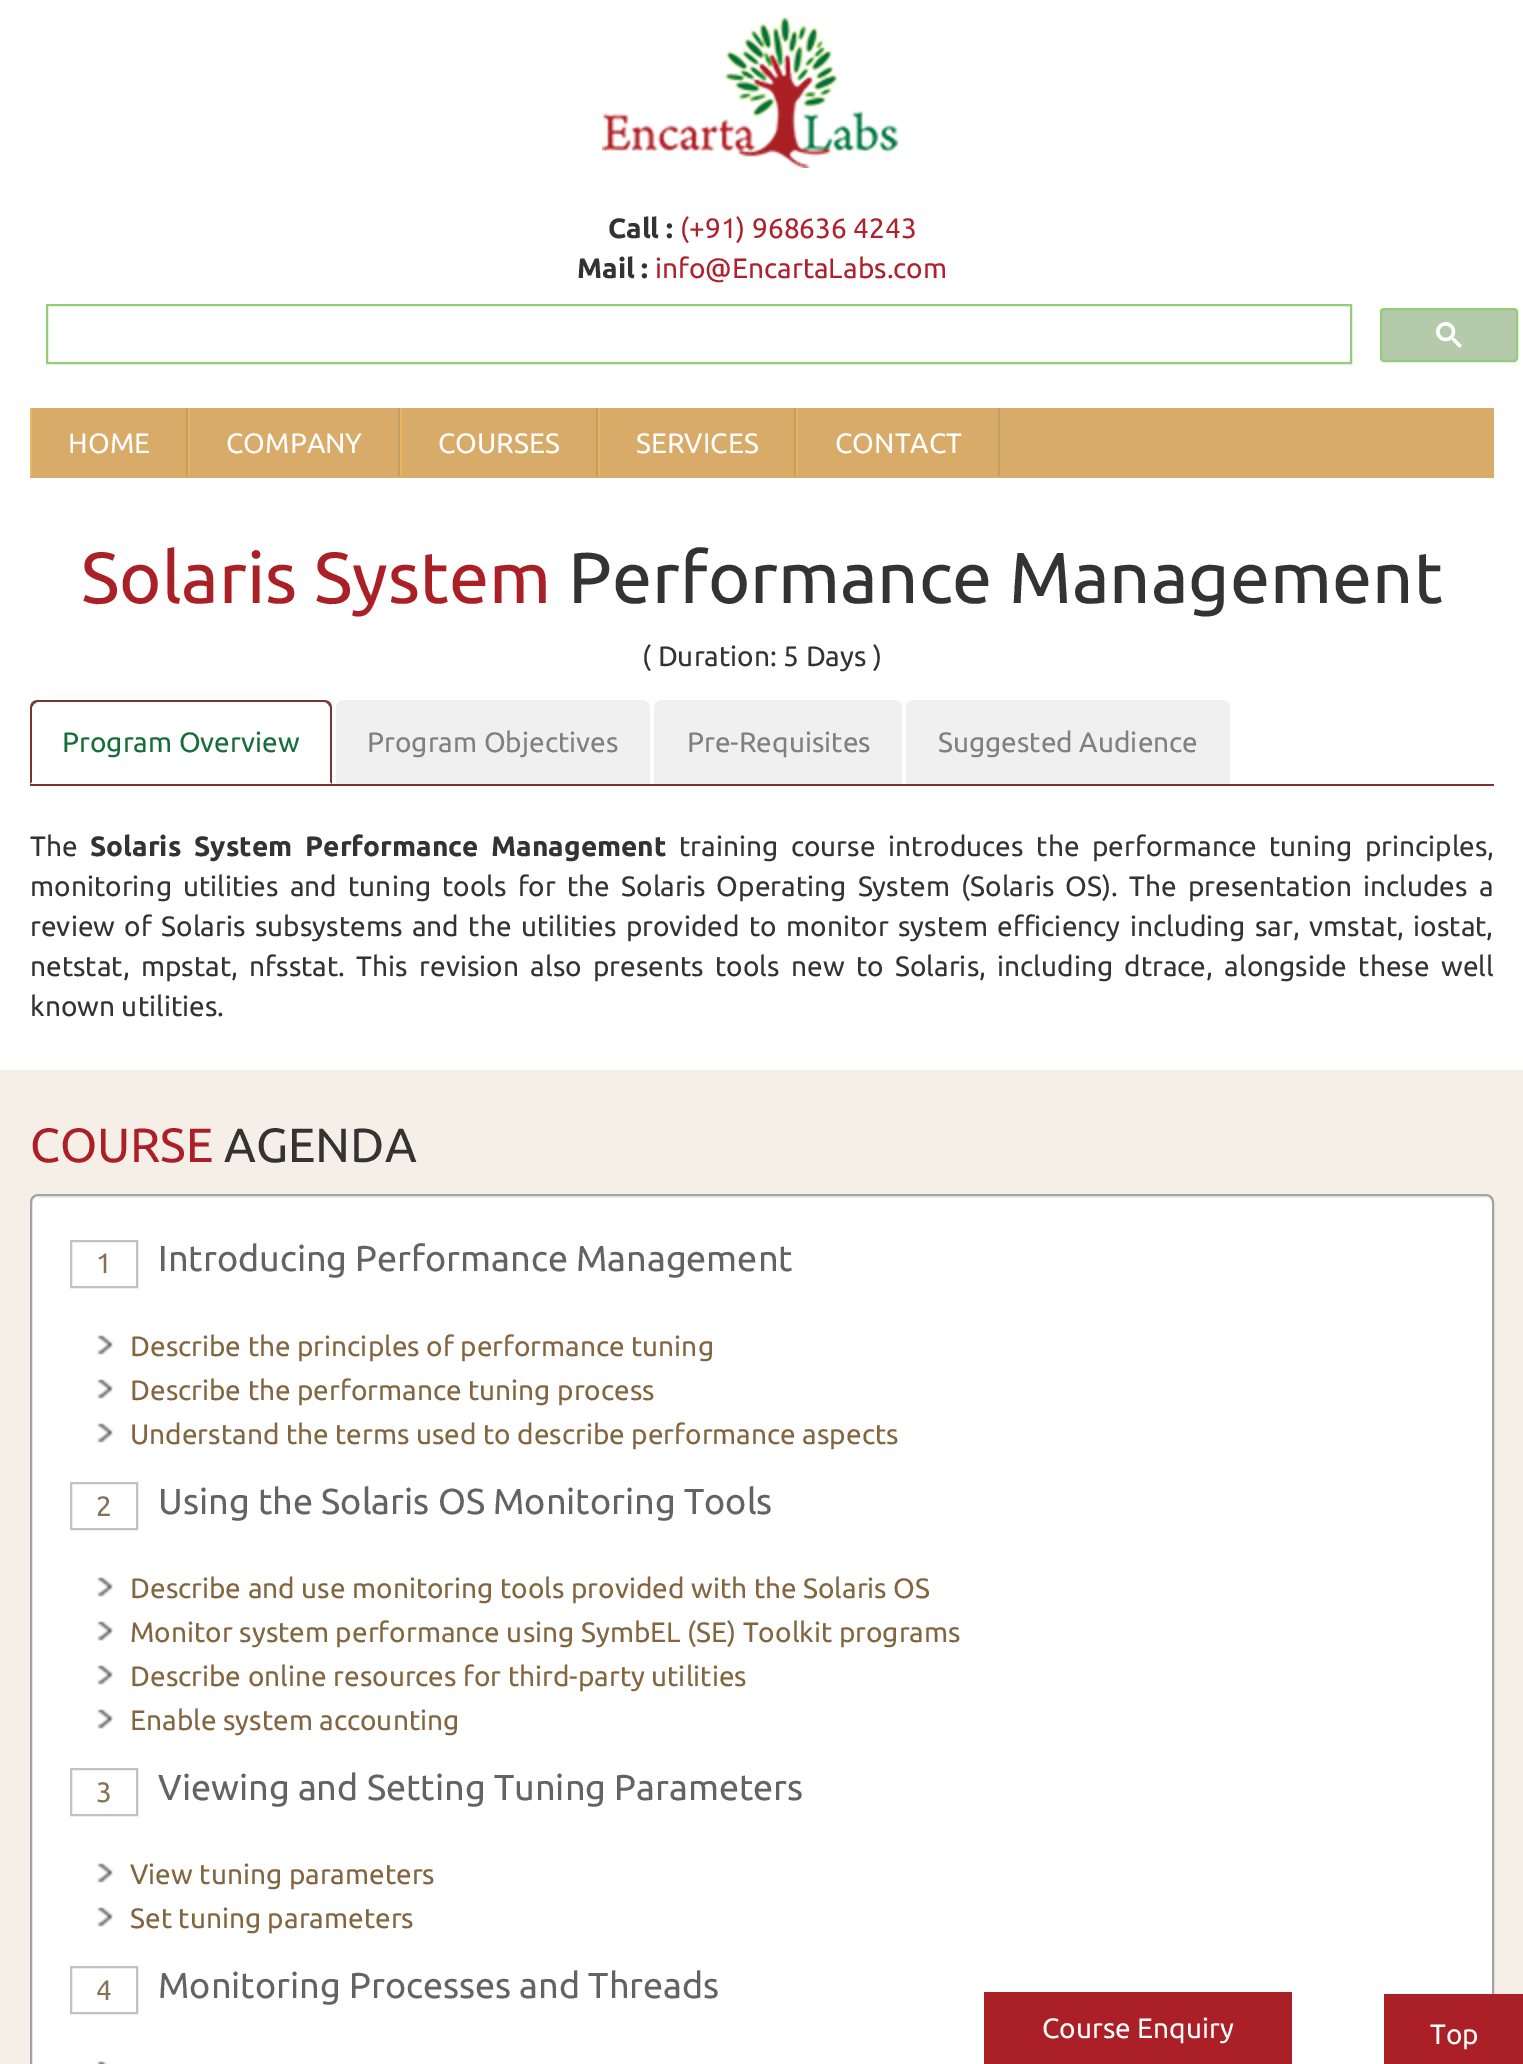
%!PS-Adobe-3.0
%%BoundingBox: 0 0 1523 2064
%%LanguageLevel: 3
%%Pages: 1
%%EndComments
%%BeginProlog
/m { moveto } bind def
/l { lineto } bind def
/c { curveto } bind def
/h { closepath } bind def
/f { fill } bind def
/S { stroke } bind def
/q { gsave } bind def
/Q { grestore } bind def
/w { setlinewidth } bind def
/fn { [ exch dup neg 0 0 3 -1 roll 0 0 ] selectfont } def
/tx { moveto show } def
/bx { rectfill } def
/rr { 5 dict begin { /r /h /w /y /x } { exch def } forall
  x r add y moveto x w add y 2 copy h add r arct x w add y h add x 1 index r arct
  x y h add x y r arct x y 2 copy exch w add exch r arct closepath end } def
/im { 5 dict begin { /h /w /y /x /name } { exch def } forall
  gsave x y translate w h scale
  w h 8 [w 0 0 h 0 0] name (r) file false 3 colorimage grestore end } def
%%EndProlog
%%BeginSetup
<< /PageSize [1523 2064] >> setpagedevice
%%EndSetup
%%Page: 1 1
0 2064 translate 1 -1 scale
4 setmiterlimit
1 setgray
0 0 1523 2064 bx
(image0.raw) 602 18 296 150 im
/Ubuntu-Bold 28 fn
0.2 setgray
(Call :) 608 238 tx
/Ubuntu-Regular 28 fn
0.686 0.129 0.176 setrgbcolor
(\(+91\) 968636 4243) 680 238 tx
/Ubuntu-Bold 28 fn
0.2 setgray
(Mail :) 577 278 tx
/Ubuntu-Regular 28 fn
0.686 0.129 0.176 setrgbcolor
(info@EncartaLabs.com) 655 278 tx
0.58 0.8 0.478 setrgbcolor
2 w
47 305 1304 58 rectstroke
0.71 0.788 0.671 setrgbcolor
1381 309 136 52 3 rr q f Q
0.58 0.8 0.478 setrgbcolor
S
(image1.raw) 1436 322 26 26 im
0.847 0.671 0.408 setrgbcolor
30 408 1464 70 bx
0.745 0.624 0.404 setrgbcolor
186 408 2 68 bx
0.925 0.706 0.373 setrgbcolor
30 408 2 68 bx
1 setgray
(HOME) 68 453 tx
0.745 0.624 0.404 setrgbcolor
398 408 2 68 bx
0.925 0.706 0.373 setrgbcolor
188 408 2 68 bx
1 setgray
(COMPANY) 226 453 tx
0.745 0.624 0.404 setrgbcolor
596 408 2 68 bx
0.925 0.706 0.373 setrgbcolor
400 408 2 68 bx
1 setgray
(COURSES) 438 453 tx
0.745 0.624 0.404 setrgbcolor
794 408 2 68 bx
0.925 0.706 0.373 setrgbcolor
598 408 2 68 bx
1 setgray
(SERVICES) 636 453 tx
0.745 0.624 0.404 setrgbcolor
998 408 2 68 bx
0.925 0.706 0.373 setrgbcolor
796 408 2 68 bx
1 setgray
(CONTACT) 835 453 tx
/Ubuntu-Regular 72 fn
0.671 0.125 0.153 setrgbcolor
(Solaris System) 81 603 tx
0.2 setgray
(Performance Management) 568 603 tx
/Ubuntu-Regular 28 fn
(\( Duration: 5 Days \)) 642 666 tx
0.471 0.212 0.192 setrgbcolor
30 784 1464 2 bx
38 700 m 36 700 34 701 32 702 c 34 704 l 37 702 l 324 702 l 326 702 327 703 328 704 c 330 702 l 328 701 326 700 324 700 c h f
332 784 m 332 708 l 332 706 331 704 330 702 c 328 704 l 330 707 l 330 782 l h f
30 784 m 32 782 l 32 707 l 34 704 l 32 702 l 31 704 30 706 30 708 c h f
0.09 0.431 0.224 setrgbcolor
(Program Overview) 62 752 tx
0.941 setgray
344 700 m 642 700 l 646.5 700 650 703.5 650 708 c 650 784 l 336 784 l 336 708 l 336 703.5 339.5 700 344 700 c h f
0.502 setgray
(Program Objectives) 367 752 tx
0.941 setgray
662 700 m 894 700 l 898.5 700 902 703.5 902 708 c 902 784 l 654 784 l 654 708 l 654 703.5 657.5 700 662 700 c h f
0.502 setgray
(Pre-Requisites) 687 752 tx
0.941 setgray
914 700 m 1222 700 l 1226.5 700 1230 703.5 1230 708 c 1230 784 l 906 784 l 906 708 l 906 703.5 909.5 700 914 700 c h f
0.502 setgray
(Suggested Audience) 938 752 tx
0.2 setgray
(The) 30 856 tx
/Ubuntu-Bold 28 fn
90 856 m 6.25 0 32 (Solaris System Performance Management) widthshow
/Ubuntu-Regular 28 fn
679 856 m 6.25 0 32 (training course introduces the performance tuning principles,) widthshow
30 896 m 4.75 0 32 (monitoring utilities and tuning tools for the Solaris Operating System \(Solaris OS\). The presentation includes a) widthshow
30 936 m 3 0 32 (review of Solaris subsystems and the utilities provided to monitor system efficiency including sar, vmstat, iostat,) widthshow
30 976 m 4.9 0 32 (netstat, mpstat, nfsstat. This revision also presents tools new to Solaris, including dtrace, alongside these well) widthshow
(known utilities.) 30 1016 tx
0.961 0.937 0.91 setrgbcolor
0 1070 1523 994 bx
/Ubuntu-Regular 48 fn
0.671 0.125 0.153 setrgbcolor
(COURSE) 30 1162 tx
0.2 setgray
(AGENDA) 224 1162 tx
1 setgray
30 1194 1464 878 8 rr f
0.949 setgray
38 1198 m 1486 1198 l 1489 1198 1492 1201 1492 1204 c 1492 1200 1491 1196 1486 1196 c 38 1196 l 33 1196 32 1200 32 1204 c 32 1201 35 1198 38 1198 c h f
0.643 setgray
31 1195 1462 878 7 rr S
0.761 setgray
71 1241 66 46 rectstroke
/Ubuntu-Regular 28 fn
0.537 0.435 0.325 setrgbcolor
(1) 96 1273 tx
/Ubuntu-Regular 36 fn
0.388 setgray
(Introducing Performance Management) 158 1271 tx
(image2.raw) 97 1335 16 20 im
/Ubuntu-Regular 28 fn
0.514 0.4 0.251 setrgbcolor
(Describe the principles of performance tuning) 130 1356 tx
(image2.raw) 97 1379 16 20 im
(Describe the performance tuning process) 130 1400 tx
(image2.raw) 97 1423 16 20 im
(Understand the terms used to describe performance aspects) 130 1444 tx
0.761 setgray
71 1483 66 46 rectstroke
0.537 0.435 0.325 setrgbcolor
(2) 96 1516 tx
/Ubuntu-Regular 36 fn
0.388 setgray
(Using the Solaris OS Monitoring Tools) 158 1514 tx
(image2.raw) 97 1577 16 20 im
/Ubuntu-Regular 28 fn
0.514 0.4 0.251 setrgbcolor
(Describe and use monitoring tools provided with the Solaris OS) 130 1598 tx
(image2.raw) 97 1621 16 20 im
(Monitor system performance using SymbEL \(SE\) Toolkit programs) 130 1642 tx
(image2.raw) 97 1665 16 20 im
(Describe online resources for third-party utilities) 130 1686 tx
(image2.raw) 97 1709 16 20 im
(Enable system accounting) 130 1730 tx
0.761 setgray
71 1769 66 46 rectstroke
0.537 0.435 0.325 setrgbcolor
(3) 96 1802 tx
/Ubuntu-Regular 36 fn
0.388 setgray
(Viewing and Setting Tuning Parameters) 158 1800 tx
(image2.raw) 97 1863 16 20 im
/Ubuntu-Regular 28 fn
0.514 0.4 0.251 setrgbcolor
(View tuning parameters) 130 1884 tx
(image2.raw) 97 1907 16 20 im
(Set tuning parameters) 130 1928 tx
0.761 setgray
71 1967 66 46 rectstroke
0.537 0.435 0.325 setrgbcolor
(4) 96 2000 tx
/Ubuntu-Regular 36 fn
0.388 setgray
(Monitoring Processes and Threads) 158 1998 tx
(image3.raw) 97 2061 10 3 im
0.671 0.125 0.153 setrgbcolor
984 1992 308 72 bx
/Ubuntu-Regular 28 fn
1 setgray
(Course Enquiry) 1042 2038 tx
0.671 0.125 0.153 setrgbcolor
1384 1994 139 70 bx
1 setgray
(Top) 1430 2044 tx
showpage
%%EOF
